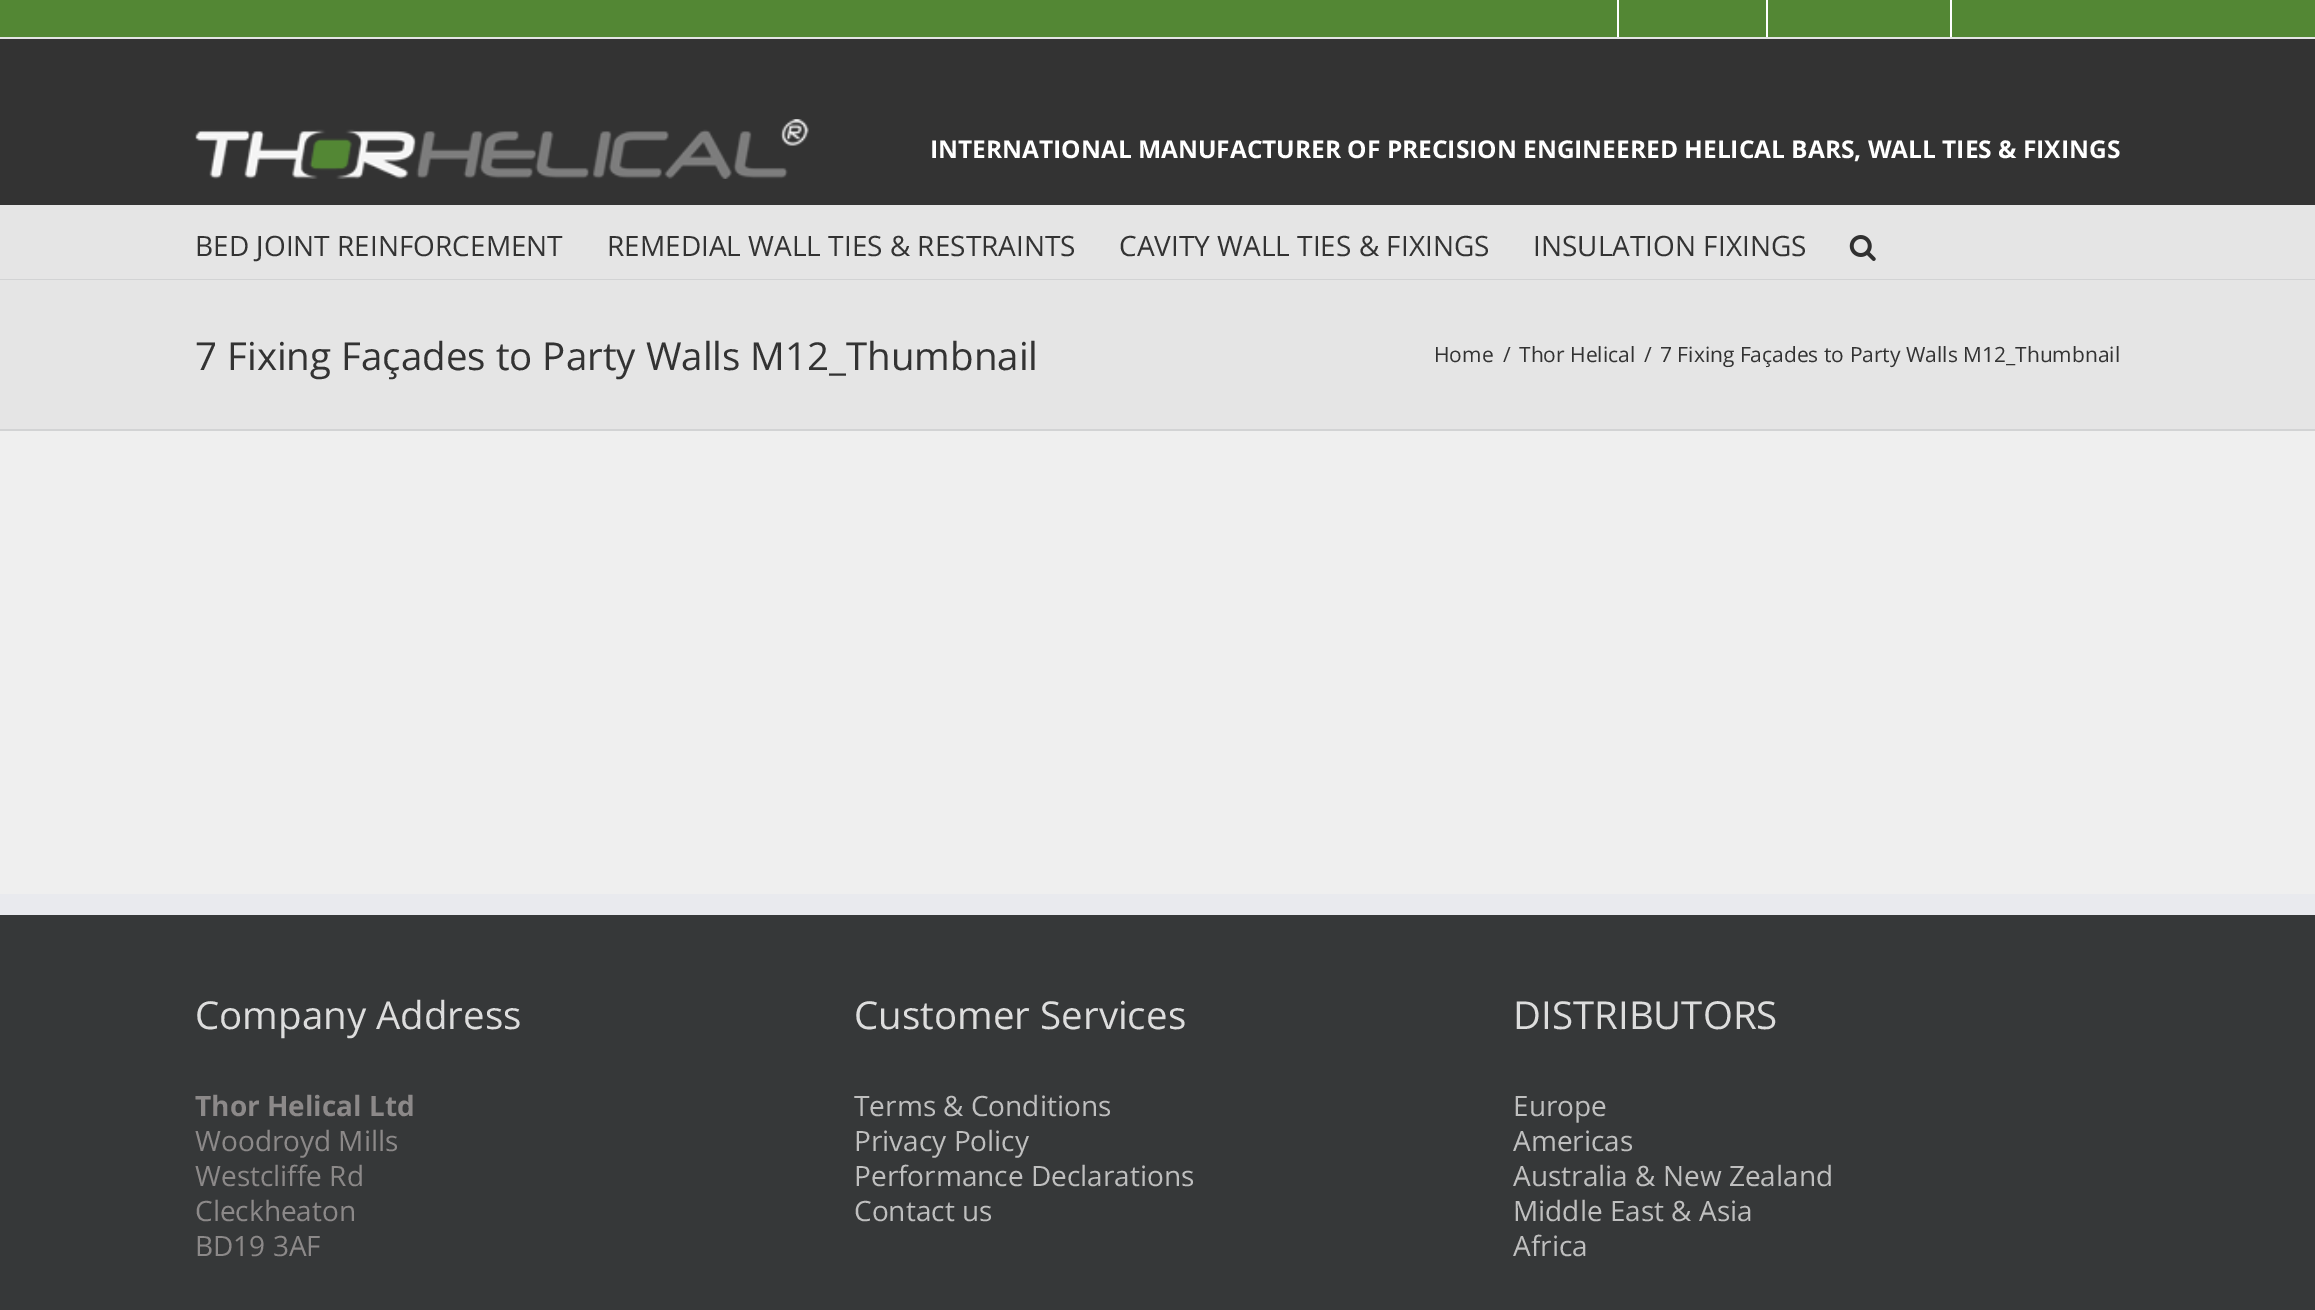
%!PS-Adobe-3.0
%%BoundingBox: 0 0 2315 1310
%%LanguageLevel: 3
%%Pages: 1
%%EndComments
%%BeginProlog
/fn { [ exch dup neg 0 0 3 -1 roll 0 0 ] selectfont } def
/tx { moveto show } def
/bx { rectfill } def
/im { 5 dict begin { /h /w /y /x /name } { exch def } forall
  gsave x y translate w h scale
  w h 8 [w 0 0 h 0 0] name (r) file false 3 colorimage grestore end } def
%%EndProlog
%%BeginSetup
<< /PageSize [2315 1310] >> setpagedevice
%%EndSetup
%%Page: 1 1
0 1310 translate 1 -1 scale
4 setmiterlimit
0.937 setgray
0 0 2315 1310 bx
0.325 0.529 0.204 setrgbcolor
0 0 2315 37 bx
0.898 setgray
0 37 2315 2 bx
1 setgray
1617 0 2 37 bx
1766 0 2 37 bx
1950 0 2 37 bx
0.2 setgray
0 39 2315 166 bx
(image0.raw) 195 119 614 60 im
/OpenSans-Bold 24.5 fn
1 setgray
(INTERNATIONAL MANUFACTURER OF PRECISION ENGINEERED HELICAL BARS, WALL TIES & FIXINGS) 930 158 tx
0.898 setgray
0 205 2315 74 bx
/OpenSans-Regular 28 fn
0.2 setgray
(BED JOINT REINFORCEMENT) 195 256 tx
(REMEDIAL WALL TIES & RESTRAINTS) 607 256 tx
(CAVITY WALL TIES & FIXINGS) 1119 256 tx
(INSULATION FIXINGS) 1533 256 tx
(image1.raw) 1849 235 27 26 im
0.898 setgray
0 280 2315 149 bx
0.824 0.827 0.831 setrgbcolor
0 279 2315 1 bx
0 429 2315 2 bx
/OpenSans-Regular 38.5 fn
0.2 setgray
(7 Fixing Façades to Party Walls M12_Thumbnail) 195 370 tx
/OpenSans-Regular 21 fn
(Home) 1434 362 tx
(/) 1503 362 tx
(Thor Helical) 1519 362 tx
(/) 1644 362 tx
(7 Fixing Façades to Party Walls M12_Thumbnail) 1660 362 tx
0.212 0.22 0.224 setrgbcolor
0 915 2315 395 bx
0.914 0.918 0.933 setrgbcolor
0 894 2315 21 bx
/OpenSans-Regular 38.5 fn
0.867 setgray
(Company Address) 195 1029 tx
/OpenSans-Bold 28 fn
0.549 0.537 0.537 setrgbcolor
(Thor Helical Ltd) 195 1116 tx
/OpenSans-Regular 28 fn
(Woodroyd Mills) 195 1151 tx
(Westcliffe Rd) 195 1186 tx
(Cleckheaton) 195 1221 tx
(BD19 3AF) 195 1256 tx
/OpenSans-Regular 38.5 fn
0.867 setgray
(Customer Services) 854 1029 tx
/OpenSans-Regular 28 fn
0.749 setgray
(Terms & Conditions) 854 1116 tx
(Privacy Policy) 854 1151 tx
(Performance Declarations) 854 1186 tx
(Contact us) 854 1221 tx
/OpenSans-Regular 38.5 fn
0.867 setgray
(DISTRIBUTORS) 1513 1029 tx
/OpenSans-Regular 28 fn
0.749 setgray
(Europe) 1513 1116 tx
(Americas) 1513 1151 tx
(Australia & New Zealand) 1513 1186 tx
(Middle East & Asia) 1513 1221 tx
(Africa) 1513 1256 tx
showpage
%%EOF
